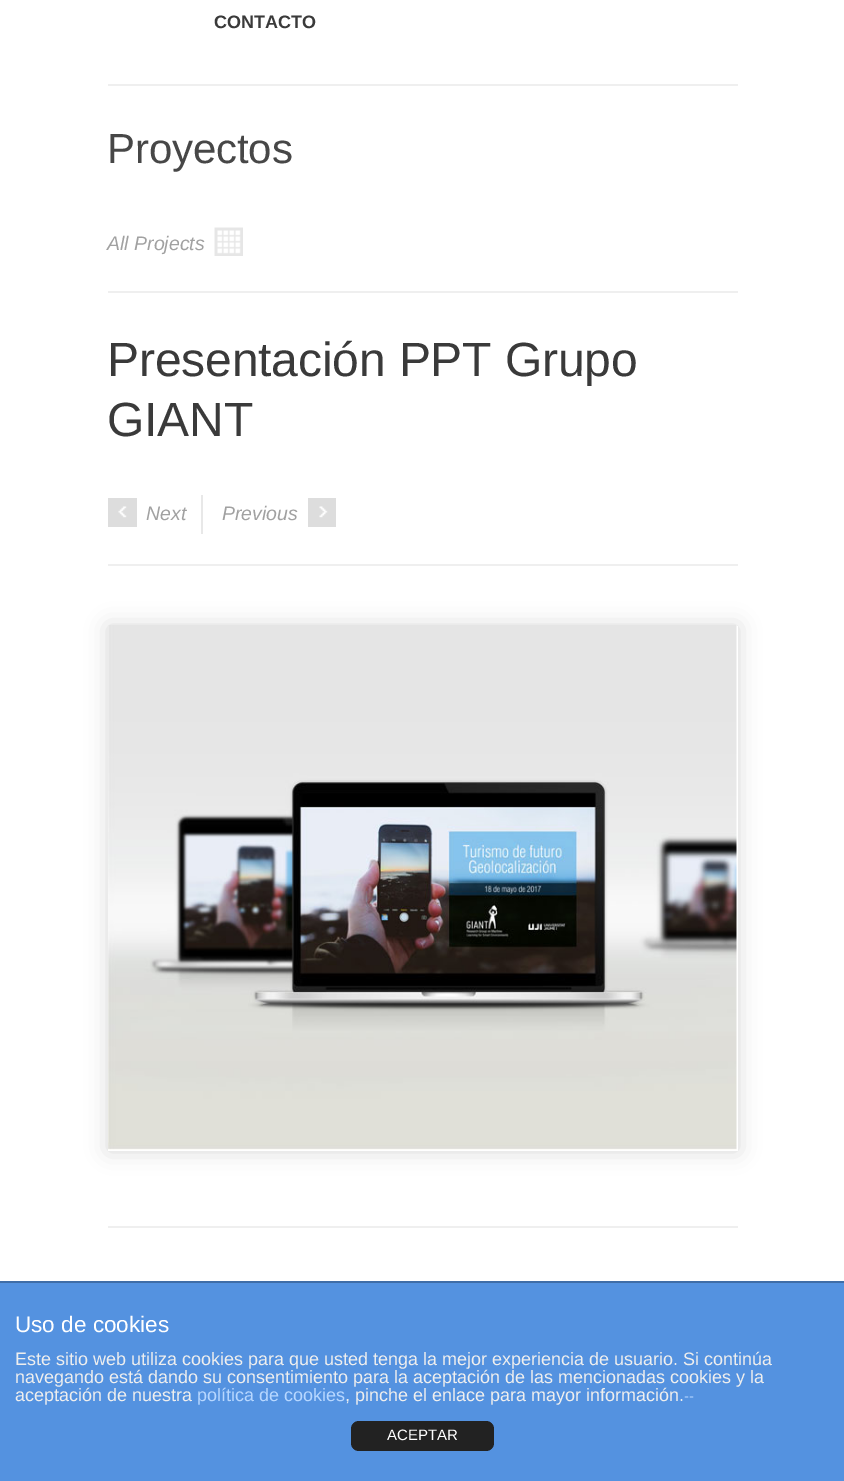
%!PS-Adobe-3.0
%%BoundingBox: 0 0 844 1481
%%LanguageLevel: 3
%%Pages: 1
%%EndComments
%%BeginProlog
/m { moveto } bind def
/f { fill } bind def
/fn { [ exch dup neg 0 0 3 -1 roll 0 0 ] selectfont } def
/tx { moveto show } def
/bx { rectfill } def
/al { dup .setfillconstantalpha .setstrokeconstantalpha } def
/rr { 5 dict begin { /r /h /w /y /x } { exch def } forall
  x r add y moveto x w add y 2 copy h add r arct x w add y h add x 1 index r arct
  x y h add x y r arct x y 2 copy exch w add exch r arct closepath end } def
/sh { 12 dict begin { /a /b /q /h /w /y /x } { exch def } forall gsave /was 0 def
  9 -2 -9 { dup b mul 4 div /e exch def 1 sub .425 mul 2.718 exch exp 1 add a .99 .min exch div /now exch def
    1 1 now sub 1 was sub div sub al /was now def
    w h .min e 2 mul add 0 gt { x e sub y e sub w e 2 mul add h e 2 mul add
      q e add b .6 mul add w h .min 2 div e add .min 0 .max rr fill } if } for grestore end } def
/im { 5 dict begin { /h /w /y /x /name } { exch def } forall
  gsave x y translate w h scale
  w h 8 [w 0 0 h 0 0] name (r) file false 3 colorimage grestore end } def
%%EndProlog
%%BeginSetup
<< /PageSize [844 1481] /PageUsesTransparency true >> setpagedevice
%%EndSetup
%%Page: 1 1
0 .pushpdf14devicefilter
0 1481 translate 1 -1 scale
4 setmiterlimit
1 setgray
0 0 844 1481 bx
0.937 setgray
108 84 630 2 bx
/LiberationSans-Bold 18 fn
0.227 setgray
(CONTACTO) 214 28 tx
0.937 setgray
108 564 630 2 bx
/LiberationSans-Regular 42 fn
0.278 setgray
107 163 m -0.15 0 (Proyectos) ashow
/LiberationSans-Italic 19.5 fn
0.631 setgray
(All Projects) 107 250 tx
(image0.raw) 214 227 29 29 im
0.937 setgray
108 291 630 2 bx
/LiberationSans-Regular 48 fn
0.227 setgray
107 376 m -0.15 0 (Presentación PPT Grupo) ashow
107 436 m -0.15 0 (GIANT) ashow
0.91 setgray
201 495 2 39 bx
0.867 setgray
108 498 29 29 bx
(image1.raw) 118 506 9 12 im
/LiberationSans-Italic 19.5 fn
0.631 setgray
(Next) 146 520 tx
(Previous) 222 520 tx
0.867 setgray
308 498 28 29 bx
(image2.raw) 319 506 9 12 im
0.937 setgray
108 1226 630 2 bx
0 setgray
108 626 630 525 0 11 0.15 sh
1 setgray
108 626 630 525 bx
(image3.raw) 108 625 629 525 im
0.329 0.573 0.878 setrgbcolor
0 1283 844 198 bx
0.247 0.427 0.655 setrgbcolor
0 1281 844 2 bx
/LiberationSans-Regular 22.5 fn
1 setgray
(Uso de cookies) 15 1332 tx
/LiberationSans-Regular 18 fn
0.933 setgray
(Este sitio web utiliza cookies para que usted tenga la mejor experiencia de usuario. Si continúa) 15 1365 tx
(navegando está dando su consentimiento para la aceptación de las mencionadas cookies y la) 15 1383 tx
(aceptación de nuestra) 15 1401 tx
0.718 0.843 1 setrgbcolor
(política de cookies) 197 1401 tx
0.933 setgray
(, pinche el enlace para mayor información.) 345 1401 tx
/LiberationSans-Regular 15 fn
0.718 0.843 1 setrgbcolor
(--) 684 1401 tx
0.133 setgray
351 1421 143 30 8 rr f
1 setgray
(ACEPTAR) 387 1440 tx
.poppdf14devicefilter showpage
%%EOF
